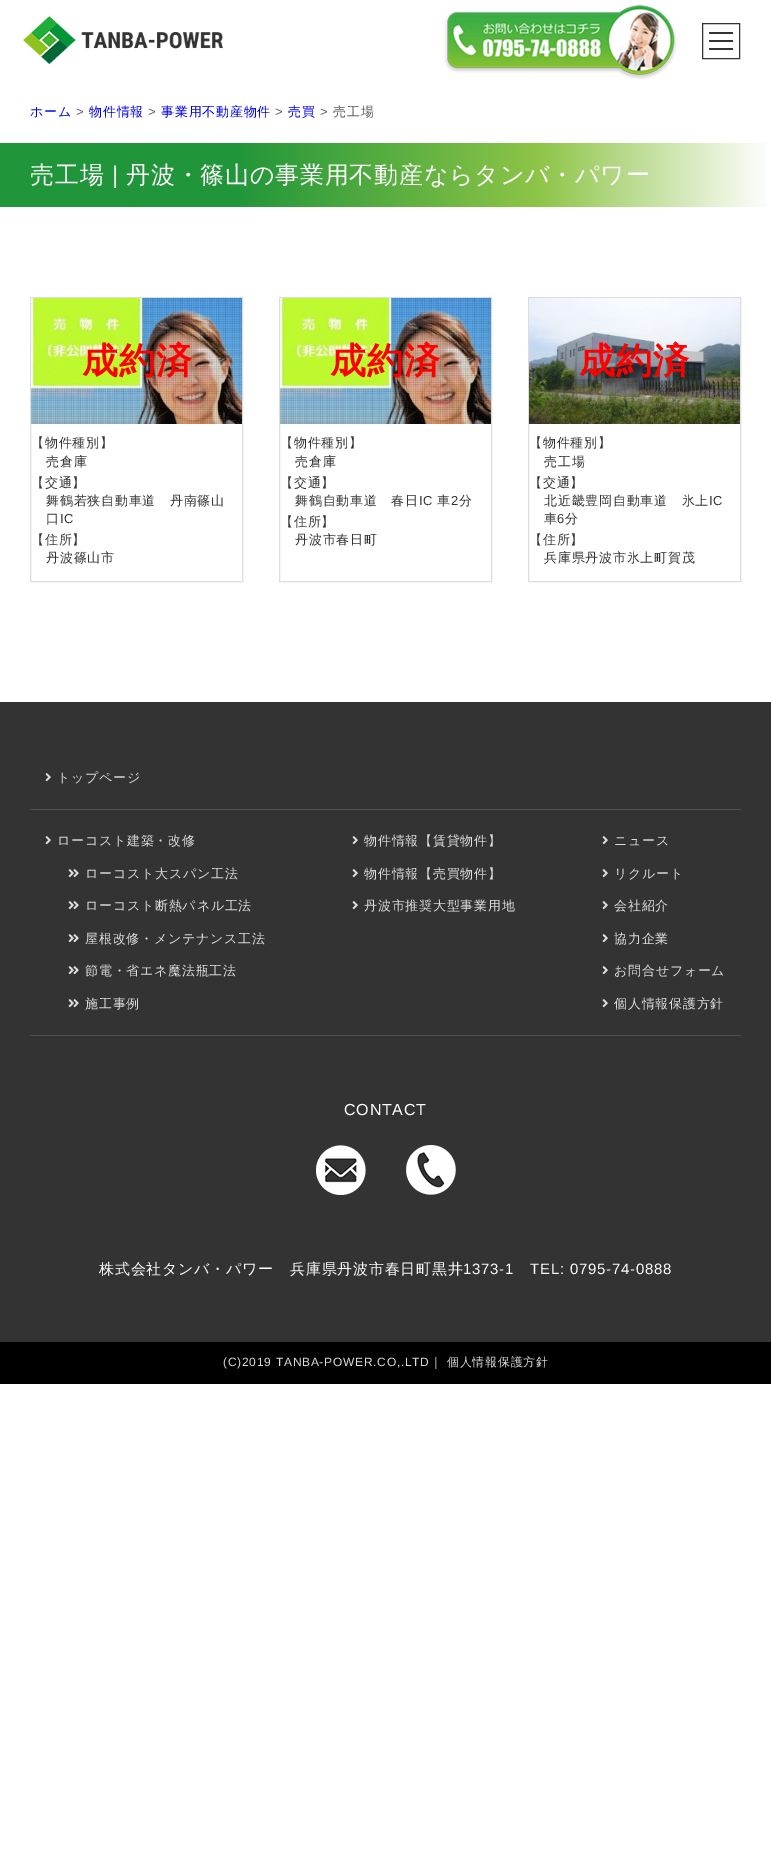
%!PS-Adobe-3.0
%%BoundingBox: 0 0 771 1876
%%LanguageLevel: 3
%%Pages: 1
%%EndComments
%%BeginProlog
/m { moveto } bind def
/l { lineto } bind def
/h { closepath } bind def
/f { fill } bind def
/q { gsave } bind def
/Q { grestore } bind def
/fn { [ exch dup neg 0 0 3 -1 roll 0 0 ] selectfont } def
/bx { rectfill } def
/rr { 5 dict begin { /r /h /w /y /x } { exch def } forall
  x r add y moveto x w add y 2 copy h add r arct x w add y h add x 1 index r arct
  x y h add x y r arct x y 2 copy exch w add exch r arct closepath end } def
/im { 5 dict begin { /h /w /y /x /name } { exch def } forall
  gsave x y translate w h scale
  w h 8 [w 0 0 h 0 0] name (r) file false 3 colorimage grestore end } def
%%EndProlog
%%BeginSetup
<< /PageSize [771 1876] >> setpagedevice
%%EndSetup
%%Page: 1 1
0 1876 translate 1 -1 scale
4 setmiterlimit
1 setgray
0 0 771 1876 bx
(image0.raw) 23 16 200 48 im
(image1.raw) 444 3 234 77 im
0.2 setgray
702.5 23.5 37 35 rectstroke
709 32 24 2 1 rr f
709 40 24 2 1 rr f
709 48 24 2 1 rr f
/WenQuanYiZenHei-Medium 13 fn
0 0 0.933 setrgbcolor
30 116 m 0.75 0 (ホーム) ashow
/LiberationSans-Regular 13 fn
0.361 setgray
76 116 m 0.75 0 (>) ashow
/WenQuanYiZenHei-Medium 13 fn
0 0 0.933 setrgbcolor
89 116 m 0.75 0 (物件情報) ashow
/LiberationSans-Regular 13 fn
0.361 setgray
148 116 m 0.75 0 (>) ashow
/WenQuanYiZenHei-Medium 13 fn
0 0 0.933 setrgbcolor
161 116 m 0.75 0 (事業用不動産物件) ashow
/LiberationSans-Regular 13 fn
0.361 setgray
275 116 m 0.75 0 (>) ashow
/WenQuanYiZenHei-Medium 13 fn
0 0 0.933 setrgbcolor
288 116 m 0.75 0 (売買) ashow
/LiberationSans-Regular 13 fn
0.361 setgray
320 116 m 0.75 0 (>) ashow
/WenQuanYiZenHei-Medium 13 fn
333 116 m 0.75 0 (売工場) ashow
q 0 143 m 768 143 l 768 207 l 0 207 l h clip newpath
<< /ShadingType 2 /ColorSpace /DeviceRGB /Coords [0 175 771 175] /Extend [true true] /Function << /FunctionType 3 /Domain [0 1] /Functions [<< /FunctionType 2 /Domain [0 1] /C0 [0.125 0.584 0.224] /C1 [0.125 0.584 0.224] /N 1 >> << /FunctionType 2 /Domain [0 1] /C0 [0.125 0.584 0.224] /C1 [0.557 0.773 0.282] /N 1 >> << /FunctionType 2 /Domain [0 1] /C0 [0.557 0.773 0.282] /C1 [1 1 1] /N 1 >>] /Bounds [0.3 0.7] /Encode [0 1 0 1 0 1] >> >> shfill Q
/WenQuanYiZenHei-Medium 24 fn
1 setgray
30 183 m 0.75 0 (売工場) ashow
/LiberationSans-Regular 24 fn
112 183 m 0.75 0 (|) ashow
/WenQuanYiZenHei-Medium 24 fn
126 183 m 0.75 0 (丹波・篠山の事業用不動産ならタンバ・パワー) ashow
0.867 setgray
30.5 297.5 212 284 rectstroke
(image2.raw) 31 298 211 126 im
/WenQuanYiZenHei-Bold 36 fn
1 0 0 setrgbcolor
82 373 m 0.75 0 (成約済) ashow
/WenQuanYiZenHei-Medium 13 fn
0.2 setgray
31 447 m 0.75 0 (【物件種別】) ashow
46 466 m 0.75 0 (売倉庫) ashow
31 487 m 0.75 0 (【交通】) ashow
46 505 m 0.75 0 (舞鶴若狭自動車道　丹南篠山) ashow
46 523 m 0.75 0 (口) ashow
/LiberationSans-Regular 13 fn
60 523 m 0.75 0 (IC) ashow
/WenQuanYiZenHei-Medium 13 fn
31 544 m 0.75 0 (【住所】) ashow
46 562 m 0.75 0 (丹波篠山市) ashow
0.867 setgray
279.5 297.5 212 284 rectstroke
(image2.raw) 280 298 211 126 im
/WenQuanYiZenHei-Bold 36 fn
1 0 0 setrgbcolor
330 373 m 0.75 0 (成約済) ashow
/WenQuanYiZenHei-Medium 13 fn
0.2 setgray
280 447 m 0.75 0 (【物件種別】) ashow
295 466 m 0.75 0 (売倉庫) ashow
280 487 m 0.75 0 (【交通】) ashow
295 505 m 0.75 0 (舞鶴自動車道　春日) ashow
/LiberationSans-Regular 13 fn
419 505 m 0.75 0 (IC) ashow
/WenQuanYiZenHei-Medium 13 fn
437 505 m 0.75 0 (車) ashow
/LiberationSans-Regular 13 fn
451 505 m 0.75 0 (2) ashow
/WenQuanYiZenHei-Medium 13 fn
459 505 m 0.75 0 (分) ashow
280 526 m 0.75 0 (【住所】) ashow
295 544 m 0.75 0 (丹波市春日町) ashow
0.867 setgray
528.5 297.5 212 284 rectstroke
(image3.raw) 529 298 211 126 im
/WenQuanYiZenHei-Bold 36 fn
1 0 0 setrgbcolor
579 373 m 0.75 0 (成約済) ashow
/WenQuanYiZenHei-Medium 13 fn
0.2 setgray
529 447 m 0.75 0 (【物件種別】) ashow
544 466 m 0.75 0 (売工場) ashow
529 487 m 0.75 0 (【交通】) ashow
544 505 m 0.75 0 (北近畿豊岡自動車道　氷上) ashow
/LiberationSans-Regular 13 fn
709 505 m 0.75 0 (IC) ashow
/WenQuanYiZenHei-Medium 13 fn
544 523 m 0.75 0 (車) ashow
/LiberationSans-Regular 13 fn
557 523 m 0.75 0 (6) ashow
/WenQuanYiZenHei-Medium 13 fn
565 523 m 0.75 0 (分) ashow
529 544 m 0.75 0 (【住所】) ashow
544 562 m 0.75 0 (兵庫県丹波市氷上町賀茂) ashow
0 702 771 640 bx
(image4.raw) 45 773 6 9 im
0.867 setgray
57 782 m 0.75 0 (トップページ) ashow
0.314 setgray
30 809 711 1 bx
30 1035 711 1 bx
(image4.raw) 45 836 6 9 im
0.867 setgray
57 845 m 0.75 0 (ローコスト建築・改修) ashow
(image5.raw) 68 869 11 9 im
85 878 m 0.75 0 (ローコスト大スパン工法) ashow
(image5.raw) 68 901 11 9 im
85 910 m 0.75 0 (ローコスト断熱パネル工法) ashow
(image5.raw) 68 934 11 9 im
85 943 m 0.75 0 (屋根改修・メンテナンス工法) ashow
(image5.raw) 68 966 11 9 im
85 975 m 0.75 0 (節電・省エネ魔法瓶工法) ashow
(image5.raw) 68 999 11 9 im
85 1008 m 0.75 0 (施工事例) ashow
(image4.raw) 352 836 6 9 im
364 845 m 0.75 0 (物件情報【賃貸物件】) ashow
(image4.raw) 352 869 6 9 im
364 878 m 0.75 0 (物件情報【売買物件】) ashow
(image4.raw) 352 901 6 9 im
364 910 m 0.75 0 (丹波市推奨大型事業用地) ashow
(image4.raw) 602 836 6 9 im
614 845 m 0.75 0 (ニュース) ashow
(image4.raw) 602 869 6 9 im
614 878 m 0.75 0 (リクルート) ashow
(image4.raw) 602 901 6 9 im
614 910 m 0.75 0 (会社紹介) ashow
(image4.raw) 602 934 6 9 im
614 943 m 0.75 0 (協力企業) ashow
(image4.raw) 602 966 6 9 im
614 975 m 0.75 0 (お問合せフォーム) ashow
(image4.raw) 602 999 6 9 im
614 1008 m 0.75 0 (個人情報保護方針) ashow
/LiberationSans-Regular 16 fn
1 setgray
344 1115 m 0.75 0 (CONTACT) ashow
(image6.raw) 316 1145 50 50 im
(image7.raw) 406 1145 50 50 im
/WenQuanYiZenHei-Medium 15 fn
99 1274 m 0.75 0 (株式会社タンバ・パワー) ashow
290 1274 m 0.75 0 (兵庫県丹波市春日町黒井) ashow
/LiberationSans-Regular 15 fn
463 1274 m 0.75 0 (1373-1) ashow
530 1274 m 0.75 0 (TEL: 0795-74-0888) ashow
0 setgray
0 1342 771 42 bx
/LiberationSans-Regular 12 fn
0.867 setgray
223 1366 m 0.75 0 (\(C\)2019 TANBA-POWER.CO,.LTD) ashow
/WenQuanYiZenHei-Medium 12 fn
430 1366 m 0.75 0 (｜ 個人情報保護方針) ashow
showpage
%%EOF
